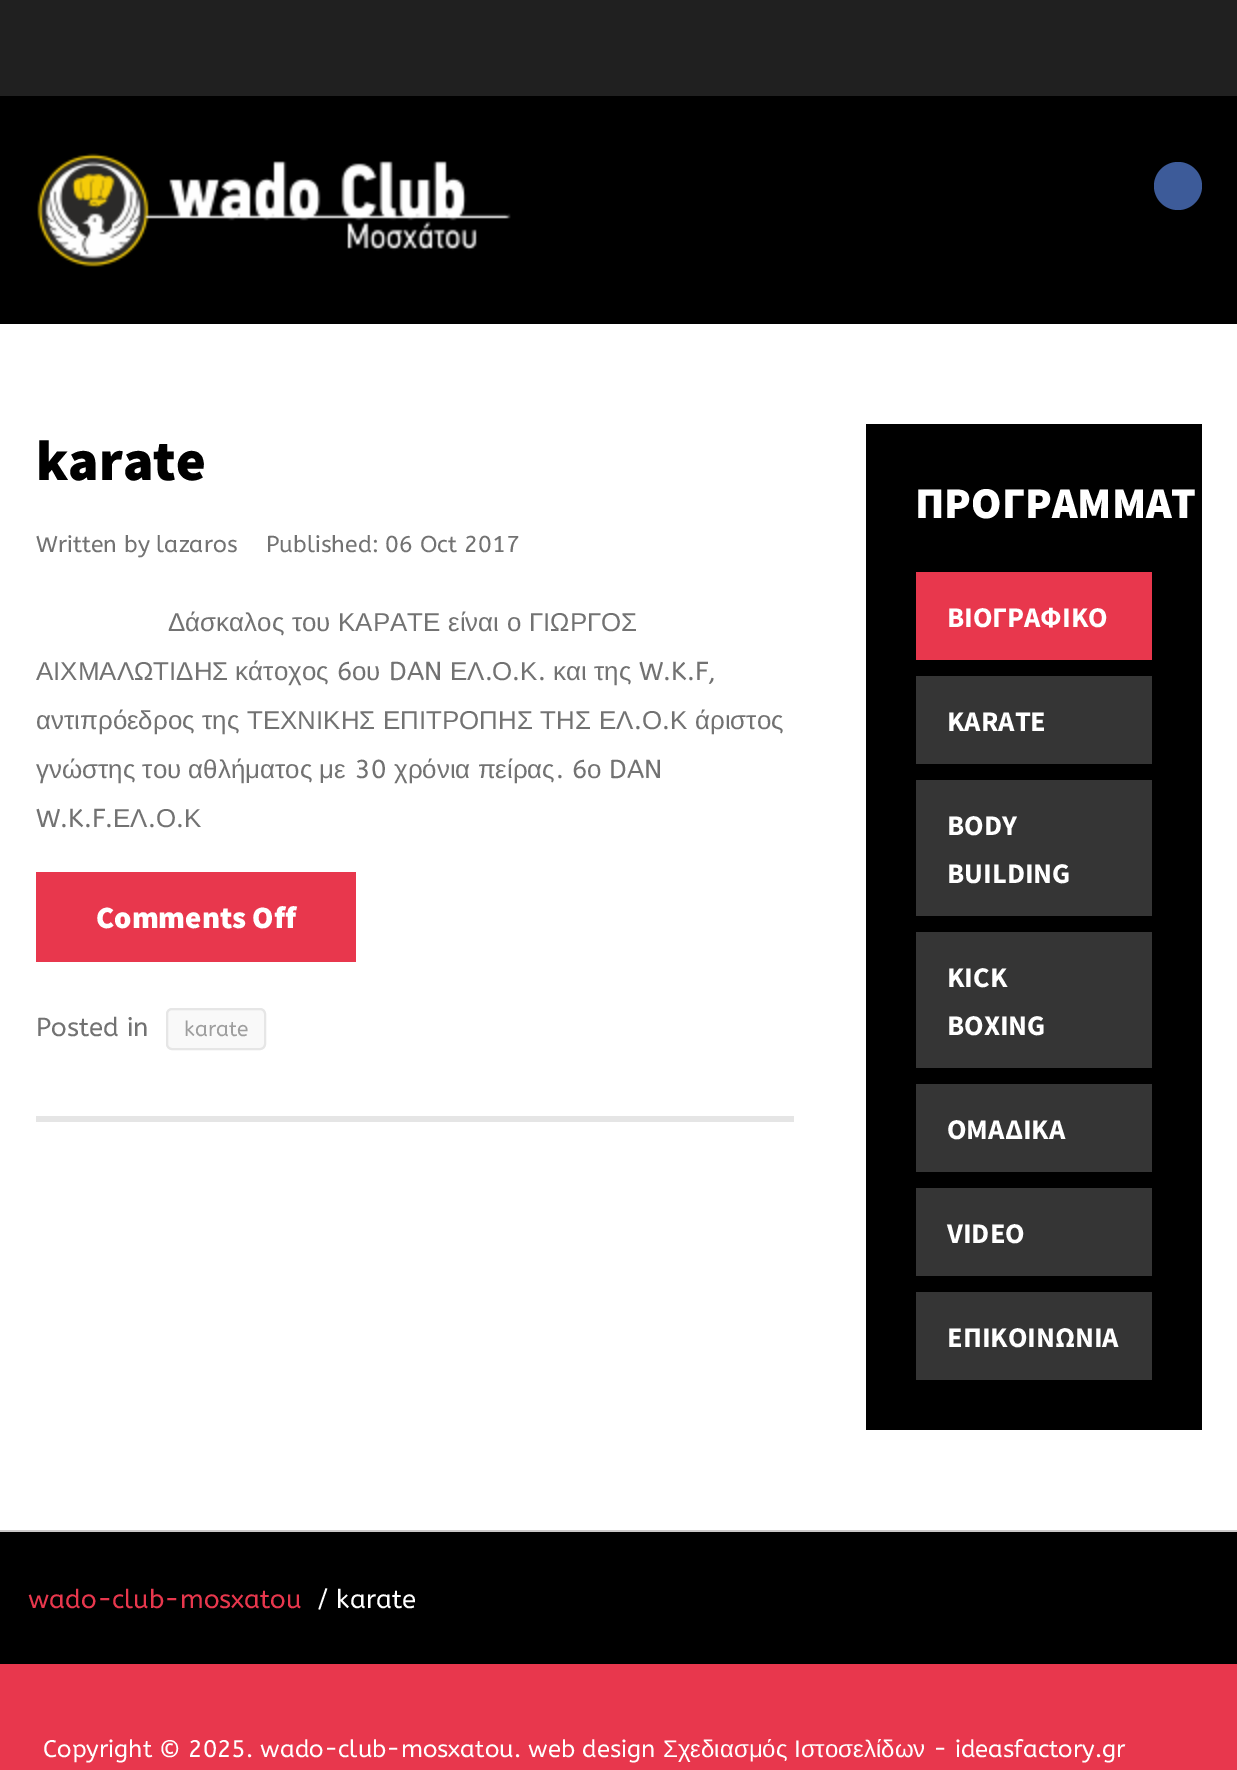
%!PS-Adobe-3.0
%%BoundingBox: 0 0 1237 1770
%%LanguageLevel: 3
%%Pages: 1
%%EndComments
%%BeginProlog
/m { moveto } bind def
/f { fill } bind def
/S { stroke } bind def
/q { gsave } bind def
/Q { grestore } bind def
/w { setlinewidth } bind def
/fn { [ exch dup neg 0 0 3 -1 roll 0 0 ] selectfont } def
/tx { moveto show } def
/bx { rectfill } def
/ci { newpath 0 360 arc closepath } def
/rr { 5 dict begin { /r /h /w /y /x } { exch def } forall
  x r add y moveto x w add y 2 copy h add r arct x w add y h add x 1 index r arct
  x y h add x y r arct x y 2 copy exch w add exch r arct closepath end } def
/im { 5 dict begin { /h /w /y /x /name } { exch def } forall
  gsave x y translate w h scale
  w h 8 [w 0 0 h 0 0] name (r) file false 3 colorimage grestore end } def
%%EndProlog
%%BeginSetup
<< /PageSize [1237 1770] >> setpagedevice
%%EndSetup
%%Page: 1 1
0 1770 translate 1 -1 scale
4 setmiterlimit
0 setgray
0 0 1237 1770 bx
0.125 setgray
0 0 1237 96 bx
(image0.raw) 37 153 474 114 im
0.239 0.357 0.6 setrgbcolor
1178 186 24 ci f
1 setgray
0 324 1237 1206 bx
0.796 0.788 0.788 setrgbcolor
0 1530 1237 2 bx
/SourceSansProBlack-Black 57 fn
0 setgray
(karate) 36 480 tx
/ABeeZee-Regular 23 fn
0.447 setgray
(Written by lazaros) 36 552 tx
(Published: 06 Oct 2017) 266 552 tx
/LiberationSans-Regular 25.9 fn
168 631 m 0.5 0 32 (Δάσκαλος του ΚΑΡΑΤΕ είναι ο ΓΙΩΡΓΟΣ) widthshow
(ΑΙΧΜΑΛΩΤΙΔΗΣ κάτοχος) 36 680 tx
/ABeeZee-Regular 25.9 fn
(6) 337 680 tx
/LiberationSans-Regular 25.9 fn
(ου) 352 680 tx
/ABeeZee-Regular 25.9 fn
(DAN) 389 680 tx
/LiberationSans-Regular 25.9 fn
(ΕΛ) 450 680 tx
/ABeeZee-Regular 25.9 fn
(.) 485 680 tx
/LiberationSans-Regular 25.9 fn
(Ο) 492 680 tx
/ABeeZee-Regular 25.9 fn
(.) 512 680 tx
/LiberationSans-Regular 25.9 fn
(Κ) 520 680 tx
/ABeeZee-Regular 25.9 fn
(.) 538 680 tx
/LiberationSans-Regular 25.9 fn
(και της) 553 680 tx
/ABeeZee-Regular 25.9 fn
(W.K.F,) 639 680 tx
/LiberationSans-Regular 25.9 fn
36 729 m 0.5 0 32 (αντιπρόεδρος της ΤΕΧΝΙΚΗΣ ΕΠΙΤΡΟΠΗΣ ΤΗΣ ΕΛ) widthshow
/ABeeZee-Regular 25.9 fn
(.) 634 729 tx
/LiberationSans-Regular 25.9 fn
(Ο) 642 729 tx
/ABeeZee-Regular 25.9 fn
(.) 662 729 tx
/LiberationSans-Regular 25.9 fn
670 729 m 0.5 0 32 (Κ άριστος) widthshow
(γνώστης του αθλήματος με) 36 778 tx
/ABeeZee-Regular 25.9 fn
(30) 355 778 tx
/LiberationSans-Regular 25.9 fn
(χρόνια πείρας) 394 778 tx
/ABeeZee-Regular 25.9 fn
(. 6) 556 778 tx
/LiberationSans-Regular 25.9 fn
(ο) 587 778 tx
/ABeeZee-Regular 25.9 fn
(DAN) 609 778 tx
(W.K.F.) 36 827 tx
/LiberationSans-Regular 25.9 fn
(ΕΛ) 113 827 tx
/ABeeZee-Regular 25.9 fn
(.) 148 827 tx
/LiberationSans-Regular 25.9 fn
(Ο) 156 827 tx
/ABeeZee-Regular 25.9 fn
(.) 176 827 tx
/LiberationSans-Regular 25.9 fn
(Κ) 184 827 tx
0.91 0.216 0.302 setrgbcolor
36 872 320 90 bx
/SourceSansProBlack-Black 31 fn
1 setgray
(Comments Off) 96 928 tx
/ABeeZee-Regular 25.9 fn
0.447 setgray
(Posted in) 36 1036 tx
0.976 setgray
167 1009 98 40 5 rr q f Q
0.902 setgray
2 w
S
/ABeeZee-Regular 21 fn
0.62 setgray
(karate) 184 1036 tx
0.898 setgray
36 1116 758 6 bx
0 setgray
866 424 336 1006 bx
/SourceSansProBlack-Black 44 fn
1 setgray
(ΠΡΟΓΡΑΜΜΑΤ) 915 518 tx
0.91 0.216 0.302 setrgbcolor
916 572 236 88 bx
/SourceSansPro-Bold 28.5 fn
1 setgray
(ΒΙΟΓΡΑΦΙΚΟ) 947 627 tx
0.208 setgray
916 676 236 88 bx
1 setgray
(KARATE) 947 731 tx
0.208 setgray
916 780 236 136 bx
1 setgray
(BODY) 947 835 tx
(BUILDING) 947 883 tx
0.208 setgray
916 932 236 136 bx
1 setgray
(KICK) 947 987 tx
(BOXING) 947 1035 tx
0.208 setgray
916 1084 236 88 bx
1 setgray
(ΟΜΑΔΙΚΑ) 947 1139 tx
0.208 setgray
916 1188 236 88 bx
1 setgray
(VIDEO) 947 1243 tx
0.208 setgray
916 1292 236 88 bx
1 setgray
(ΕΠΙΚΟΙΝΩΝΙΑ) 947 1347 tx
/ABeeZee-Regular 25.9 fn
0.91 0.216 0.302 setrgbcolor
(wado-club-mosxatou) 28 1608 tx
1 setgray
(/ karate) 317 1608 tx
0.91 0.216 0.302 setrgbcolor
0 1664 1237 106 bx
/ABeeZee-Regular 24 fn
1 setgray
(Copyright © 2025. wado-club-mosxatou. web design) 43 1757 tx
/LiberationSans-Regular 24 fn
(Σχεδιασμός) 663 1757 tx
(Ιστοσελίδων) 794 1757 tx
/ABeeZee-Regular 24 fn
(- ideasfactory.gr) 933 1757 tx
showpage
%%EOF
